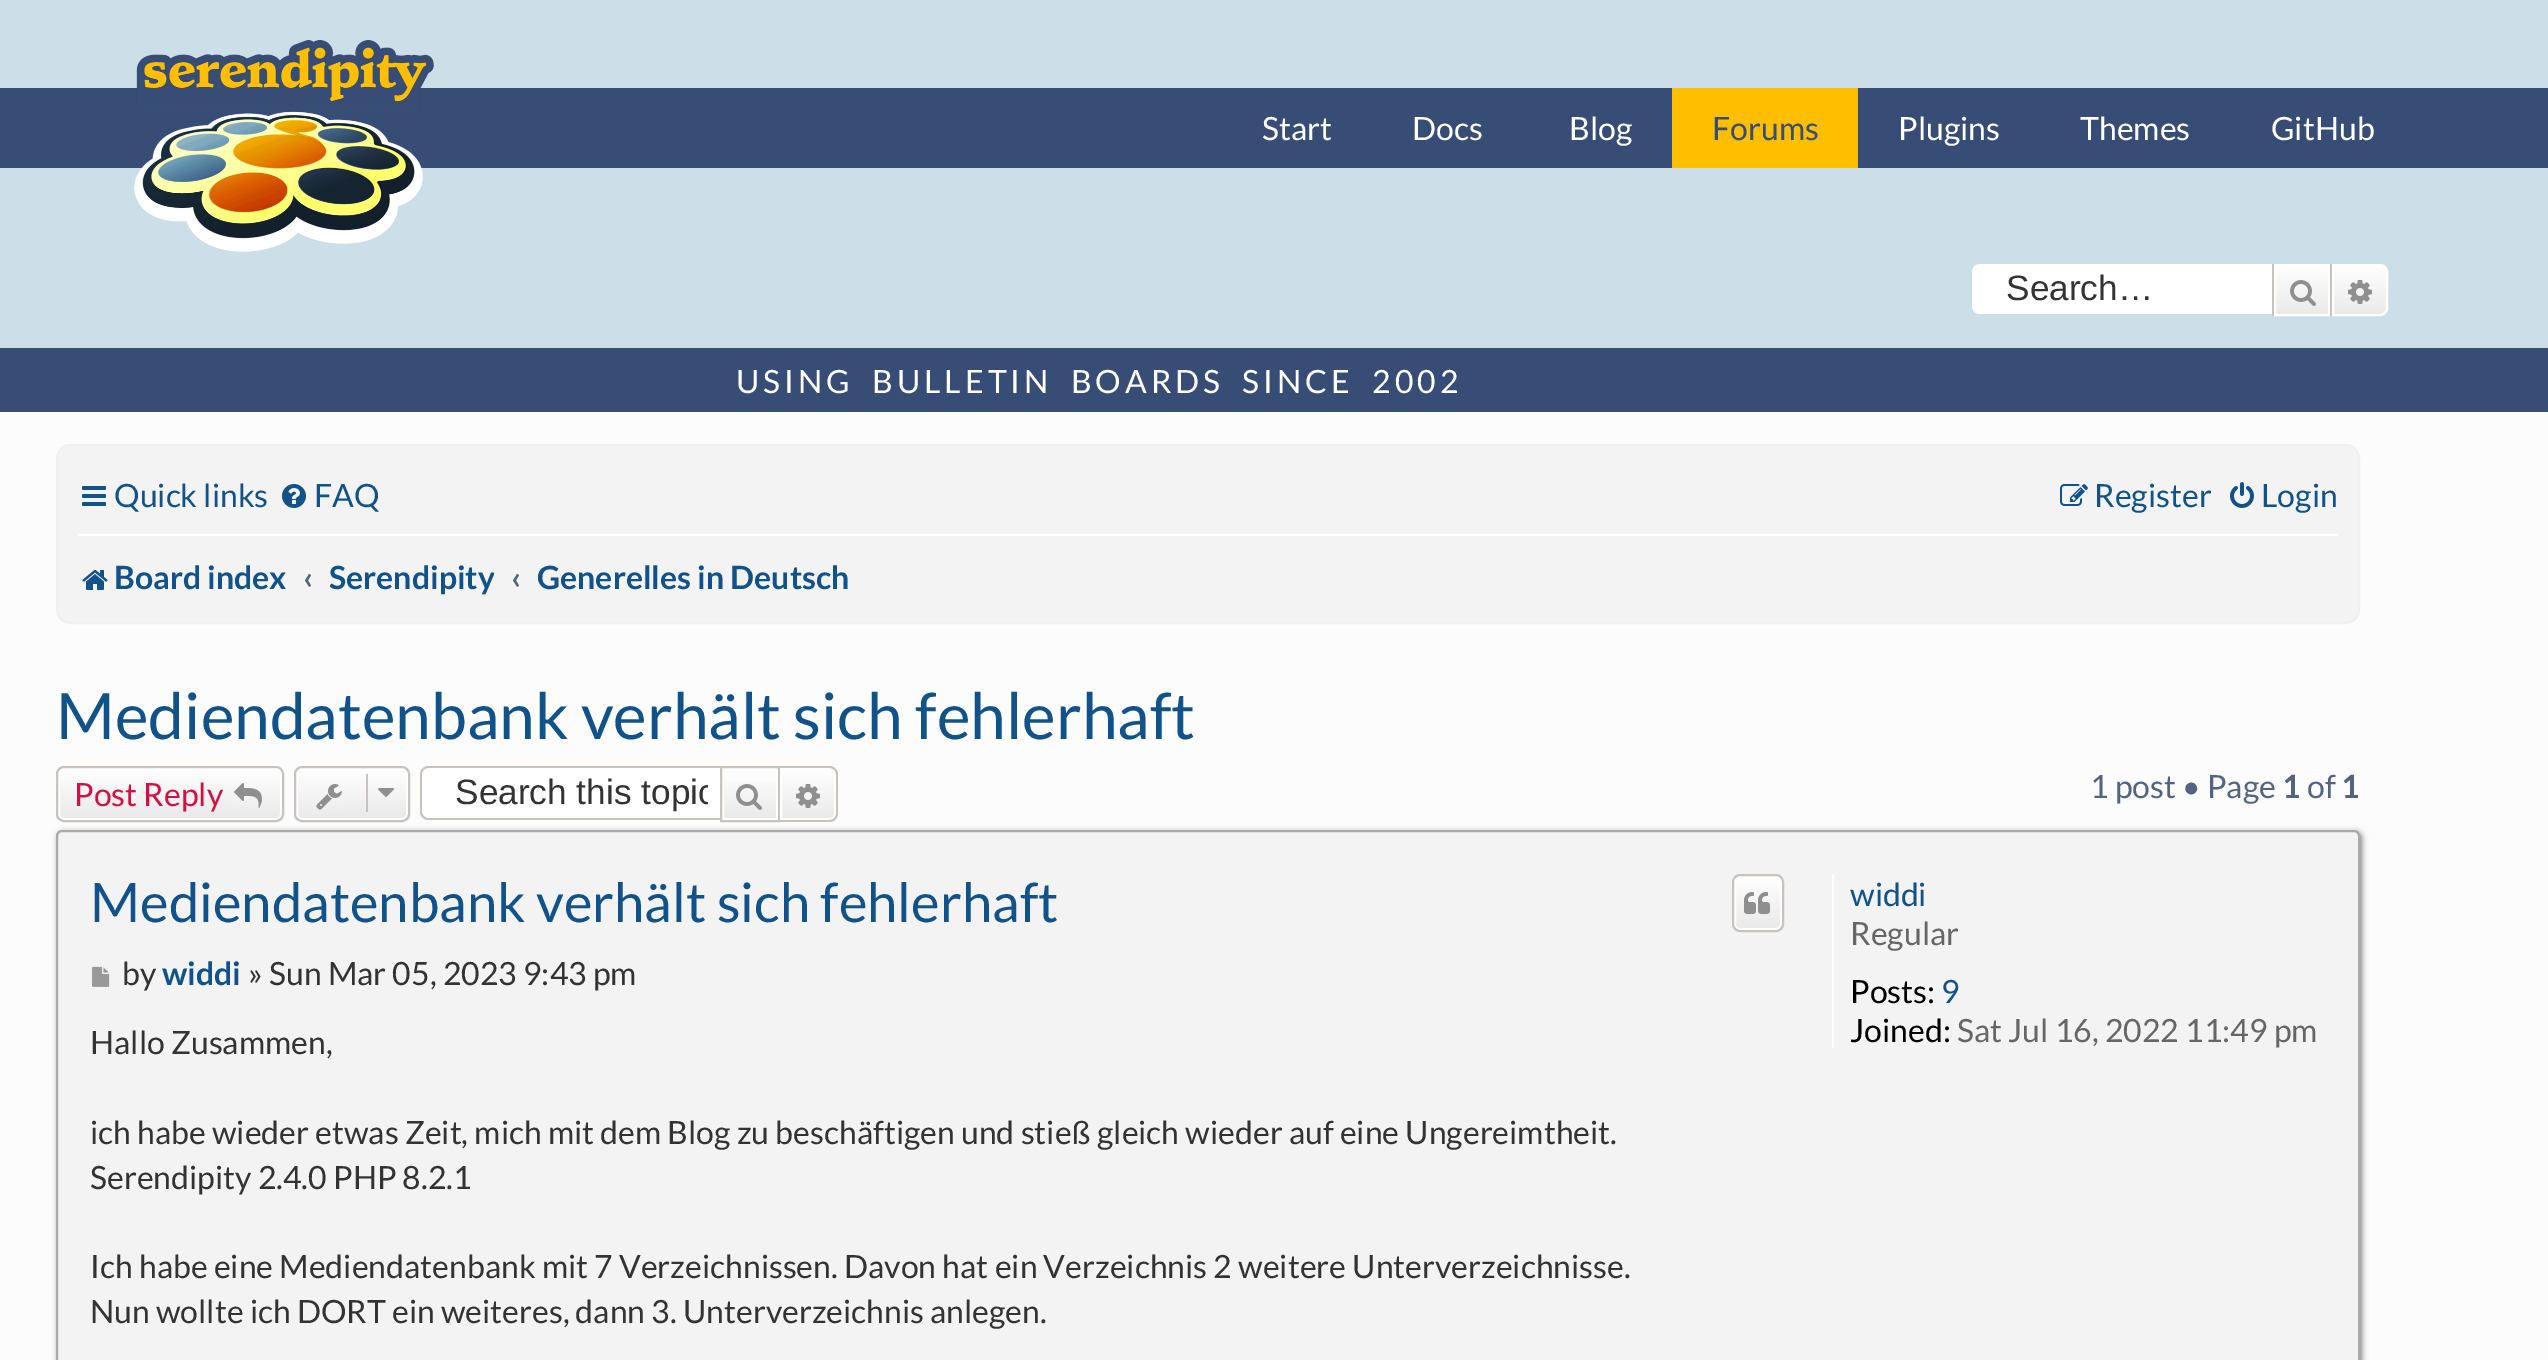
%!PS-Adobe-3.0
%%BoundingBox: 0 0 2548 1360
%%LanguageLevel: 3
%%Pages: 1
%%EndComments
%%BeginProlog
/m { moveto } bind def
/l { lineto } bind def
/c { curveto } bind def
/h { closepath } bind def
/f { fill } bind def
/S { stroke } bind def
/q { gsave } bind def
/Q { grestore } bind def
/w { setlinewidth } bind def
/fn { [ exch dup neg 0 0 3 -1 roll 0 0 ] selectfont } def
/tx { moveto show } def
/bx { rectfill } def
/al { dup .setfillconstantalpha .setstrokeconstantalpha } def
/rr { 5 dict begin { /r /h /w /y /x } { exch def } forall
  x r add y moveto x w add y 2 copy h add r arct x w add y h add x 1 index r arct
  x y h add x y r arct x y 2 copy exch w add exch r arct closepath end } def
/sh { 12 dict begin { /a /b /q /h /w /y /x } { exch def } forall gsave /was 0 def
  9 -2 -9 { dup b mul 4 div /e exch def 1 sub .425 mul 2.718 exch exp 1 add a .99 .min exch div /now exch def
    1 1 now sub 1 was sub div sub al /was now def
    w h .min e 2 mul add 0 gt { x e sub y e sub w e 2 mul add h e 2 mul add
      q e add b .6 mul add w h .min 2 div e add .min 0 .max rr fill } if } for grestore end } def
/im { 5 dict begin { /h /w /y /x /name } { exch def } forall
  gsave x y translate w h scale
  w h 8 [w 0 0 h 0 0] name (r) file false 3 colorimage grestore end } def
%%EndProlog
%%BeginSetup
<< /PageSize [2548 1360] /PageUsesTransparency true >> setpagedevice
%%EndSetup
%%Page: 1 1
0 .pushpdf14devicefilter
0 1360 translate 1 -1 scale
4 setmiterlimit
0.8 0.871 0.906 setrgbcolor
0 0 2548 1360 bx
0.216 0.302 0.463 setrgbcolor
0 88 2548 80 bx
(image0.raw) 134 40 300 212 im
/Lato-Regular 32 fn
1 setgray
(Start) 1262 140 tx
(Docs) 1412 140 tx
(Blog) 1569 140 tx
1 0.749 0 setrgbcolor
1672 88 186 80 bx
0.216 0.302 0.463 setrgbcolor
(Forums) 1712 140 tx
1 setgray
(Plugins) 1898 140 tx
(Themes) 2080 140 tx
(GitHub) 2271 140 tx
1980 264 m 2272 264 l 2272 314 l 1980 314 l 1975.5 314 1972 310.5 1972 306 c 1972 272 l 1972 267.5 1975.5 264 1980 264 c h f
/LiberationSans-Regular 35.25 fn
0.2 setgray
(Search…) 2006 300 tx
q 2276 266 m 2328 266 l 2328 314 l 2276 314 l h clip newpath
<< /ShadingType 2 /ColorSpace /DeviceRGB /Coords [2302 264 2302 316] /Extend [true true] /Function << /FunctionType 2 /Domain [0 1] /C0 [1 1 1] /C1 [0.914 0.914 0.914] /N 1 >> >> shfill Q
1 setgray
2 w
2275 265 54 50 rectstroke
0.78 0.765 0.749 setrgbcolor
2330 264 2 52 bx
2272 264 2 52 bx
(image1.raw) 2290 280 26 26 im
q 2333 265 m 2380 265 l 2384 265 2387 268 2387 272 c 2387 308 l 2387 312 2384 315 2380 315 c 2333 315 l h clip newpath
<< /ShadingType 2 /ColorSpace /DeviceRGB /Coords [2360 264 2360 316] /Extend [true true] /Function << /FunctionType 2 /Domain [0 1] /C0 [1 1 1] /C1 [0.914 0.914 0.914] /N 1 >> >> shfill Q
1 setgray
2333 265 m 2380 265 l 2384 265 2387 268 2387 272 c 2387 308 l 2387 312 2384 315 2380 315 c 2333 315 l h S
(image2.raw) 2348 280 24 24 im
0.216 0.302 0.463 setrgbcolor
0 348 2548 64 bx
/Lato-Regular 32 fn
1 setgray
736 393 m 8 0 32 4 0 (USING BULLETIN BOARDS SINCE 2002) awidthshow
0.988 setgray
0 412 2548 948 bx
0.953 setgray
57 445 2302 178 13 rr q f Q
0.941 setgray
S
(image3.raw) 82 486 24 20 im
0.063 0.322 0.537 setrgbcolor
(Quick links) 114 507 tx
(image4.raw) 282 484 24 24 im
(FAQ) 314 507 tx
(image5.raw) 2060 484 28 22 im
(Register) 2094 507 tx
(image6.raw) 2230 482 24 26 im
(Login) 2261 507 tx
1 setgray
78 534 2260 2 bx
(image7.raw) 82 570 26 20 im
/Lato-Bold 32 fn
0.063 0.322 0.537 setrgbcolor
(Board index) 114 589 tx
0.325 0.392 0.51 setrgbcolor
(‹) 303 589 tx
q
330 542 164 70 rectclip
0.063 0.322 0.537 setrgbcolor
(Serendipity) 329 589 tx
Q
(‹) 511 589 tx
0.063 0.322 0.537 setrgbcolor
(Generelles in Deutsch) 537 589 tx
/Lato-Regular 64 fn
(Mediendatenbank verhält sich fehlerhaft) 56 739 tx
q
56 766 228 56 8 rr clip newpath
q 56 768 m 284 768 l 284 820 l 56 820 l h clip newpath
<< /ShadingType 2 /ColorSpace /DeviceRGB /Coords [170 768 170 820] /Extend [true true] /Function << /FunctionType 2 /Domain [0 1] /C0 [1 1 1] /C1 [0.914 0.914 0.914] /N 1 >> >> shfill Q
Q
1 setgray
59 769 222 50 5 rr S
0.78 0.765 0.749 setrgbcolor
57 767 226 54 7 rr S
/Lato-Regular 32 fn
0.827 0.067 0.255 setrgbcolor
(Post Reply) 74 806 tx
(image8.raw) 234 783 28 25 im
q
294 766 116 56 8 rr clip newpath
q 294 768 m 410 768 l 410 820 l 294 820 l h clip newpath
<< /ShadingType 2 /ColorSpace /DeviceRGB /Coords [352 768 352 820] /Extend [true true] /Function << /FunctionType 2 /Domain [0 1] /C0 [1 1 1] /C1 [0.914 0.914 0.914] /N 1 >> >> shfill Q
Q
1 setgray
297 769 110 50 5 rr S
0.78 0.765 0.749 setrgbcolor
295 767 114 54 7 rr S
(image9.raw) 316 784 26 26 im
366 774 2 38 bx
(image10.raw) 378 788 16 9 im
1 setgray
428 768 m 720 768 l 720 818 l 428 818 l 424.5 818 422 815.5 422 812 c 422 774 l 422 770.5 424.5 768 428 768 c h f
0.78 0.765 0.749 setrgbcolor
428 766 m 720 766 l 720 820 l 428 820 l 424 820 420 816 420 812 c 420 774 l 420 770 424 766 428 766 c h 428 768 m 720 768 l 720 818 l 428 818 l 425 818 422 815 422 812 c 422 774 l 422 771 425 768 428 768 c h eofill
q
456 772 252 42 rectclip
/LiberationSans-Regular 35.25 fn
0.2 setgray
(Search this topic) 455 804 tx
Q
q 724 781 m 776 781 l 776 818 l 724 818 l h clip newpath
<< /ShadingType 2 /ColorSpace /DeviceRGB /Coords [750 768 750 820] /Extend [true true] /Function << /FunctionType 2 /Domain [0 1] /C0 [1 1 1] /C1 [0.914 0.914 0.914] /N 1 >> >> shfill Q
1 setgray
723 769 54 50 rectstroke
0.78 0.765 0.749 setrgbcolor
721 767 58 54 rectstroke
(image1.raw) 736 784 26 26 im
q 781 769 m 830 769 l 833 769 835 771 835 774 c 835 814 l 835 817 833 819 830 819 c 781 819 l h clip newpath
<< /ShadingType 2 /ColorSpace /DeviceRGB /Coords [808 768 808 820] /Extend [true true] /Function << /FunctionType 2 /Domain [0 1] /C0 [1 1 1] /C1 [0.914 0.914 0.914] /N 1 >> >> shfill Q
1 setgray
781 769 m 830 769 l 833 769 835 771 835 774 c 835 814 l 835 817 833 819 830 819 c 781 819 l h S
0.78 0.765 0.749 setrgbcolor
780 766 m 830 766 l 834 766 838 770 838 774 c 838 814 l 838 818 834 822 830 822 c 780 822 l h 780 768 m 830 768 l 833 768 836 771 836 774 c 836 814 l 836 817 833 820 830 820 c 780 820 l h eofill
(image2.raw) 796 784 24 24 im
0.325 0.392 0.51 setrgbcolor
(1 post • Page) 2090 798 tx
/Lato-Bold 32 fn
(1) 2282 798 tx
/Lato-Regular 32 fn
(of) 2307 798 tx
/Lato-Bold 32 fn
(1) 2341 798 tx
0.502 setgray
58 832 2304 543 6 3 1 sh
0.953 setgray
57 831 2302 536 5 rr q f Q
0.671 setgray
S
/Lato-Regular 54.4 fn
0.063 0.322 0.537 setrgbcolor
(Mediendatenbank verhält sich fehlerhaft) 90 922 tx
q
1732 874 52 58 8 rr clip newpath
q 1732 876 m 1784 876 l 1784 930 l 1732 930 l h clip newpath
<< /ShadingType 2 /ColorSpace /DeviceRGB /Coords [1758 876 1758 930] /Extend [true true] /Function << /FunctionType 2 /Domain [0 1] /C0 [1 1 1] /C1 [0.914 0.914 0.914] /N 1 >> >> shfill Q
Q
1 setgray
1735 877 46 52 5 rr S
0.78 0.765 0.749 setrgbcolor
1733 875 50 56 7 rr S
(image11.raw) 1744 892 26 22 im
(image12.raw) 92 966 18 21 im
/Lato-Regular 32 fn
0.2 setgray
(by) 122 985 tx
/Lato-Bold 32 fn
0.063 0.322 0.537 setrgbcolor
(widdi) 162 985 tx
/Lato-Regular 32 fn
0.2 setgray
(» Sun Mar 05, 2023 9:43 pm) 248 985 tx
(Hallo Zusammen,) 90 1054 tx
(ich habe wieder etwas Zeit, mich mit dem Blog zu beschäftigen und stieß gleich wieder auf eine Ungereimtheit.) 90 1144 tx
(Serendipity 2.4.0 PHP 8.2.1) 90 1189 tx
(Ich habe eine Mediendatenbank mit 7 Verzeichnissen. Davon hat ein Verzeichnis 2 weitere Unterverzeichnisse.) 90 1278 tx
(Nun wollte ich DORT ein weiteres, dann 3. Unterverzeichnis anlegen.) 90 1323 tx
1 setgray
1832 874 2 174 bx
0.063 0.322 0.537 setrgbcolor
(widdi) 1850 906 tx
0.4 setgray
(Regular) 1850 945 tx
0 setgray
(Posts:) 1850 1003 tx
0.063 0.322 0.537 setrgbcolor
(9) 1941 1003 tx
0 setgray
(Joined:) 1850 1042 tx
0.4 setgray
(Sat Jul 16, 2022 11:49 pm) 1957 1042 tx
.poppdf14devicefilter showpage
%%EOF
